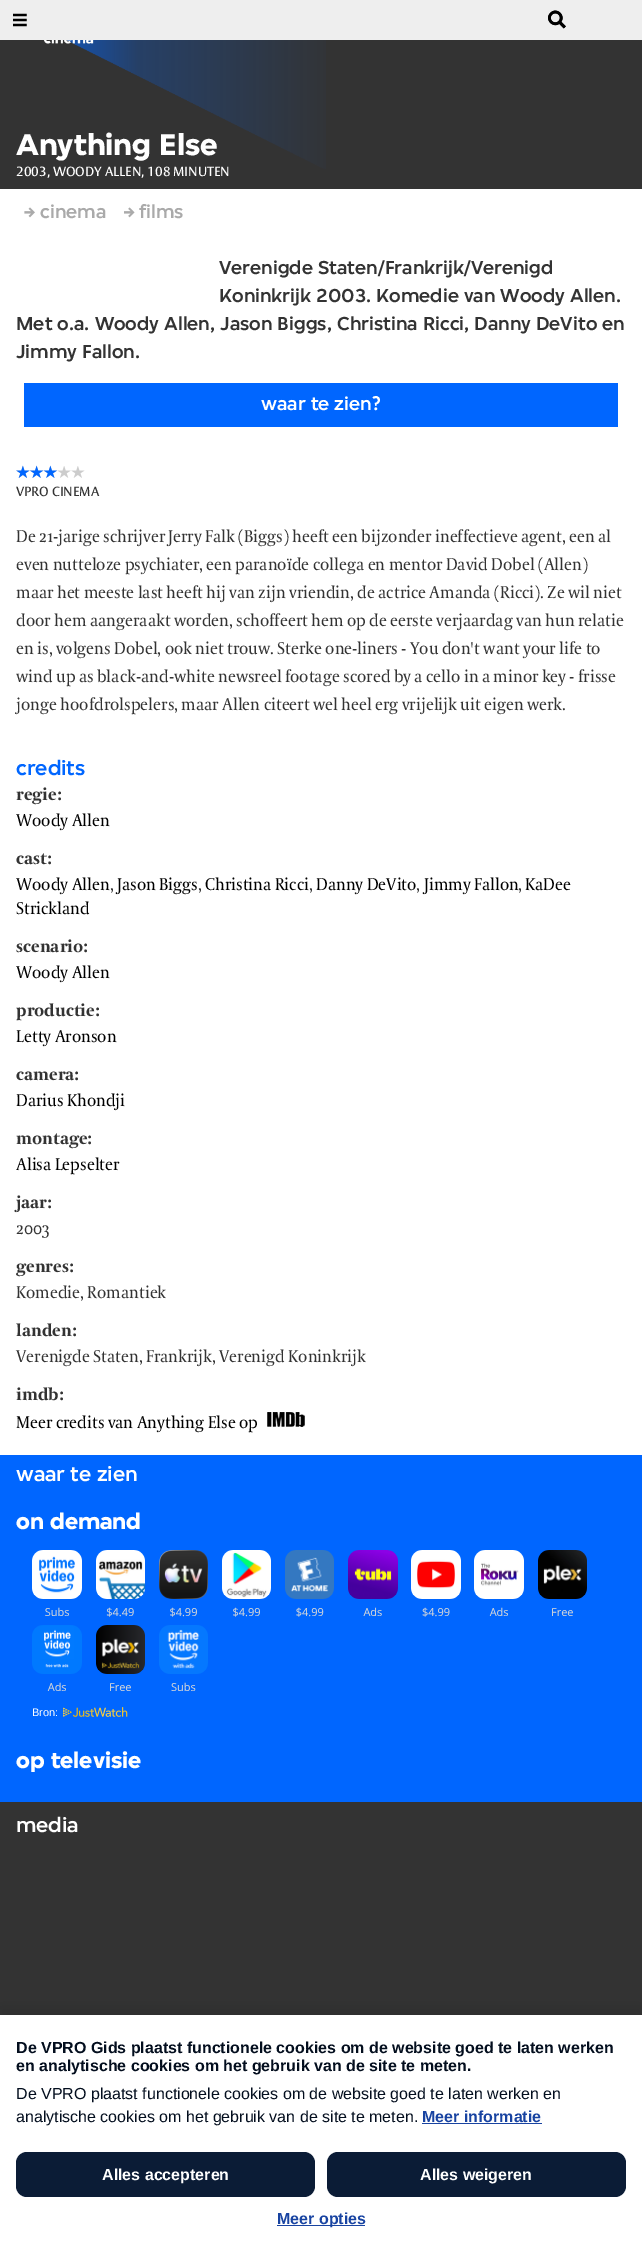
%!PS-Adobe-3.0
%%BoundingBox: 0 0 642 2253
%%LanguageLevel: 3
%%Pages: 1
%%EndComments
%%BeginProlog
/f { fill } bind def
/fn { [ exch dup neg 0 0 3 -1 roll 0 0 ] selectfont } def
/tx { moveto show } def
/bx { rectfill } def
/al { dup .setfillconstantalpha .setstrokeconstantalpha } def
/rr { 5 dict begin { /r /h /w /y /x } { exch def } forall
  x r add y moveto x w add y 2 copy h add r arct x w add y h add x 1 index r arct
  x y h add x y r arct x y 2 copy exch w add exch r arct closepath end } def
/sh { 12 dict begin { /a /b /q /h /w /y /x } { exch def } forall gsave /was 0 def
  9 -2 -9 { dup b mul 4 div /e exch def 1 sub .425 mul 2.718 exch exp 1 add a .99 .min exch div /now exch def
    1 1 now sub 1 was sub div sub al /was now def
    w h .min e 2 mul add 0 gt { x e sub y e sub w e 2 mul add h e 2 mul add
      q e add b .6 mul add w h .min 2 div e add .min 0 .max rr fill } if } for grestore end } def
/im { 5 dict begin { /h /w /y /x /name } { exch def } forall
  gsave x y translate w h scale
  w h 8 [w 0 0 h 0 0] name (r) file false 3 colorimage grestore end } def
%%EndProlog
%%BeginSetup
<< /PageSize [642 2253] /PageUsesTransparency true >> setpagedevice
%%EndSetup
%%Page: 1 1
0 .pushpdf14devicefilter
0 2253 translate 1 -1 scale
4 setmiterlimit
1 setgray
0 0 642 2253 bx
0.933 setgray
0 0 642 40 bx
(image0.raw) 13 13 14 14 im
(image1.raw) 548 10 18 19 im
(image2.raw) 548 10 18 19 im
0.2 setgray
0 40 642 149 bx
(image3.raw) 43 40 283 129 im
/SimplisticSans-Bold 32 fn
1 setgray
(Anything Else) 16 155 tx
/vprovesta-Regular 13 fn
(2003, WOODY ALLEN, 108 MINUTEN) 16 176 tx
(image4.raw) 24 207 11 11 im
/SimplisticSans-Medium 20 fn
0.667 setgray
(cinema) 40 218 tx
(image5.raw) 124 207 11 11 im
(films) 139 218 tx
0.2 setgray
(Verenigde Staten/Frankrijk/Verenigd) 219 274 tx
(Koninkrijk 2003. Komedie van Woody Allen.) 219 302 tx
(Met o.a. Woody Allen, Jason Biggs, Christina Ricci, Danny DeVito en) 16 330 tx
(Jimmy Fallon.) 16 358 tx
0 0.4 1 setrgbcolor
24 383 594 44 bx
1 setgray
(waar te zien?) 261 410 tx
(image7.raw) 16 466 69 12 im
(image6.raw) 16 465 41 13 im
/vprovesta-Regular 13 fn
0.2 setgray
(VPRO CINEMA) 16 496 tx
/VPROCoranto-Regular 17 fn
(De 21-jarige schrijver Jerry Falk \(Biggs\) heeft een bijzonder ineffectieve agent, een al) 16 542 tx
(even nutteloze psychiater, een paranoïde collega en mentor David Dobel \(Allen\)) 16 570 tx
(maar het meeste last heeft hij van zijn vriendin, de actrice Amanda \(Ricci\). Ze wil niet) 16 598 tx
(door hem aangeraakt worden, schoffeert hem op de eerste verjaardag van hun relatie) 16 626 tx
(en is, volgens Dobel, ook niet trouw. Sterke one-liners - You don't want your life to) 16 654 tx
(wind up as black-and-white newsreel footage scored by a cello in a minor key - frisse) 16 682 tx
(jonge hoofdrolspelers, maar Allen citeert wel heel erg vrijelijk uit eigen werk.) 16 710 tx
/SimplisticSans-Medium 22 fn
0 0.4 1 setrgbcolor
(credits) 16 775 tx
/VPROCoranto-Bold 17 fn
0.2 setgray
(regie:) 16 800 tx
/VPROCoranto-Regular 17 fn
0 setgray
(Woody Allen) 16 826 tx
/VPROCoranto-Bold 17 fn
0.2 setgray
(cast:) 16 864 tx
/VPROCoranto-Regular 17 fn
0 setgray
(Woody Allen) 16 890 tx
0.2 setgray
(,) 110 890 tx
0 setgray
(Jason Biggs) 117 890 tx
0.2 setgray
(,) 198 890 tx
0 setgray
(Christina Ricci) 205 890 tx
0.2 setgray
(,) 309 890 tx
0 setgray
(Danny DeVito) 316 890 tx
0.2 setgray
(,) 416 890 tx
0 setgray
(Jimmy Fallon) 424 890 tx
0.2 setgray
(,) 518 890 tx
0 setgray
(KaDee) 525 890 tx
(Strickland) 16 914 tx
/VPROCoranto-Bold 17 fn
0.2 setgray
(scenario:) 16 952 tx
/VPROCoranto-Regular 17 fn
0 setgray
(Woody Allen) 16 978 tx
/VPROCoranto-Bold 17 fn
0.2 setgray
(productie:) 16 1016 tx
/VPROCoranto-Regular 17 fn
0 setgray
(Letty Aronson) 16 1042 tx
/VPROCoranto-Bold 17 fn
0.2 setgray
(camera:) 16 1080 tx
/VPROCoranto-Regular 17 fn
0 setgray
(Darius Khondji) 16 1106 tx
/VPROCoranto-Bold 17 fn
0.2 setgray
(montage:) 16 1144 tx
/VPROCoranto-Regular 17 fn
0 setgray
(Alisa Lepselter) 16 1170 tx
/VPROCoranto-Bold 17 fn
0.2 setgray
(jaar:) 16 1208 tx
/VPROCoranto-Regular 17 fn
(2003) 16 1234 tx
/VPROCoranto-Bold 17 fn
(genres:) 16 1272 tx
/VPROCoranto-Regular 17 fn
(Komedie, Romantiek) 16 1298 tx
/VPROCoranto-Bold 17 fn
(landen:) 16 1336 tx
/VPROCoranto-Regular 17 fn
(Verenigde Staten, Frankrijk, Verenigd Koninkrijk) 16 1362 tx
/VPROCoranto-Bold 17 fn
(imdb:) 16 1400 tx
/VPROCoranto-Regular 17 fn
0 setgray
(Meer credits van Anything Else op) 16 1428 tx
(image8.raw) 267 1412 38 15 im
0 0.4 1 setrgbcolor
0 1455 642 347 bx
/SimplisticSans-Medium 22 fn
1 setgray
(waar te zien) 16 1481 tx
/SimplisticSans-Bold 24 fn
(on demand) 16 1529 tx
(image9.raw) 32 1550 555 141 im
/LiberationSans-Regular 11 fn
(Bron:) 32 1716 tx
(image10.raw) 63 1707 65 10 im
/SimplisticSans-Bold 24 fn
(op televisie) 16 1768 tx
0.2 setgray
0 1802 642 213 bx
/SimplisticSans-Medium 22 fn
1 setgray
(media) 16 1832 tx
0 setgray
0 2007 642 238 0 7.5 0.1 sh
1 setgray
0 2015 642 238 bx
/LiberationSans-Bold 16 fn
0.012 0.055 0.118 setrgbcolor
(De VPRO Gids plaatst functionele cookies om de website goed te laten werken) 16 2053 tx
(en analytische cookies om het gebruik van de site te meten.) 16 2071 tx
/LiberationSans-Regular 16 fn
(De VPRO plaatst functionele cookies om de website goed te laten werken en) 16 2099 tx
(analytische cookies om het gebruik van de site te meten.) 16 2122 tx
/LiberationSans-Bold 16 fn
0.094 0.263 0.631 setrgbcolor
(Meer informatie) 422 2122 tx
422 2123 120 1 bx
0.043 0.11 0.212 setrgbcolor
16 2152 299 45 11 rr f
1 setgray
(Alles accepteren) 102 2180 tx
0.043 0.11 0.212 setrgbcolor
327 2152 299 45 11 rr f
1 setgray
(Alles weigeren) 420 2180 tx
0.094 0.263 0.631 setrgbcolor
277 2225 88 1 bx
(Meer opties) 277 2224 tx
.poppdf14devicefilter showpage
%%EOF
